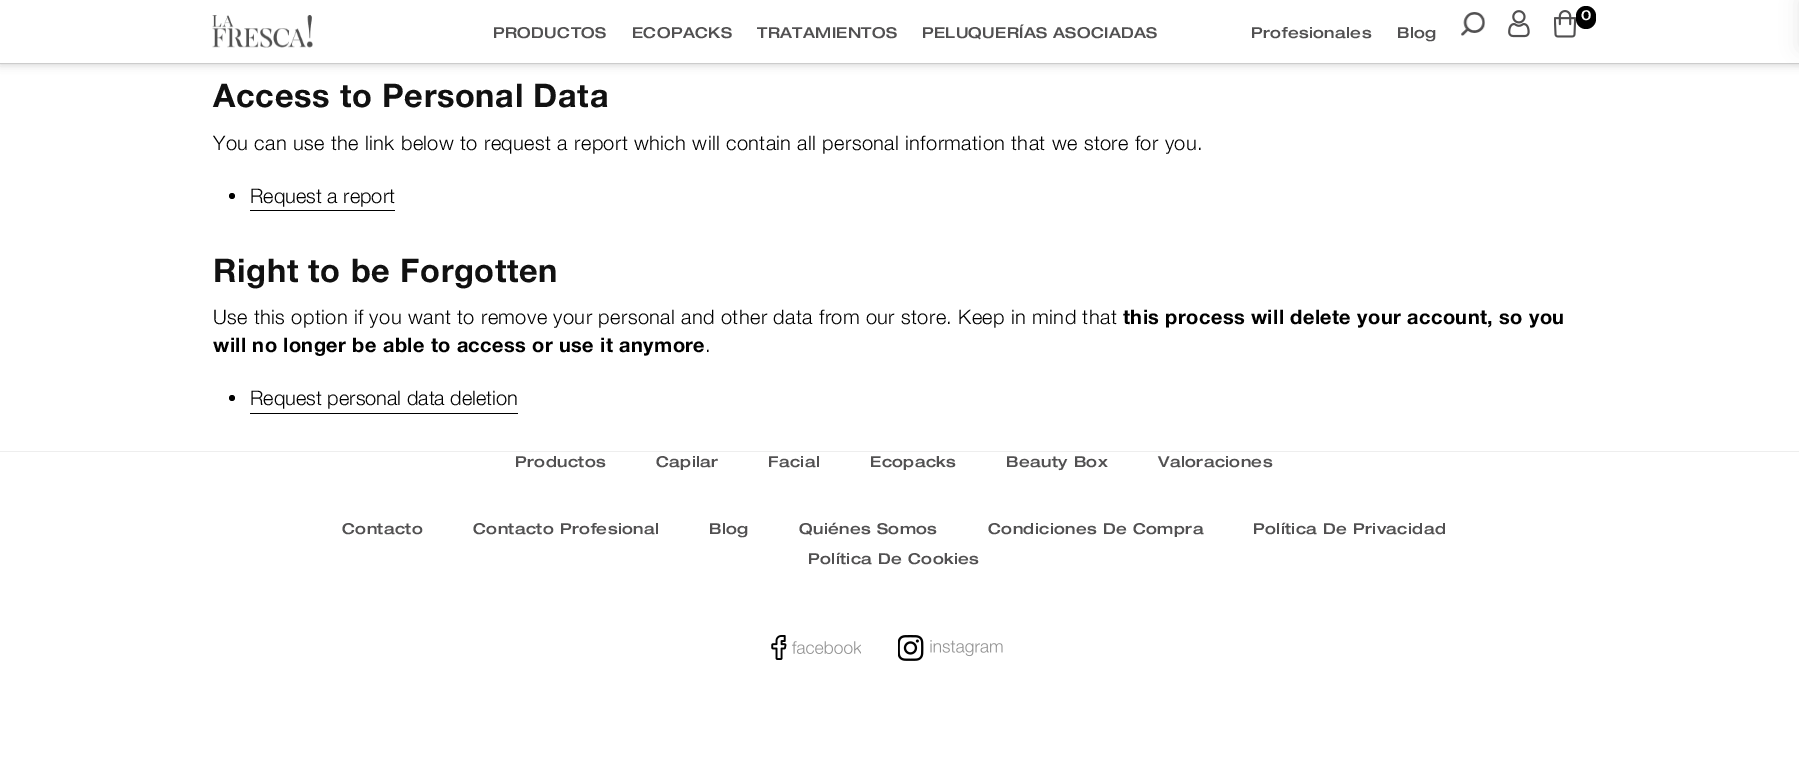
%!PS-Adobe-3.0
%%BoundingBox: 0 0 1799 769
%%LanguageLevel: 3
%%Pages: 1
%%EndComments
%%BeginProlog
/m { moveto } bind def
/f { fill } bind def
/fn { [ exch dup neg 0 0 3 -1 roll 0 0 ] selectfont } def
/tx { moveto show } def
/bx { rectfill } def
/al { dup .setfillconstantalpha .setstrokeconstantalpha } def
/ci { newpath 0 360 arc closepath } def
/rr { 5 dict begin { /r /h /w /y /x } { exch def } forall
  x r add y moveto x w add y 2 copy h add r arct x w add y h add x 1 index r arct
  x y h add x y r arct x y 2 copy exch w add exch r arct closepath end } def
/sh { 12 dict begin { /a /b /q /h /w /y /x } { exch def } forall gsave /was 0 def
  9 -2 -9 { dup b mul 4 div /e exch def 1 sub .425 mul 2.718 exch exp 1 add a .99 .min exch div /now exch def
    1 1 now sub 1 was sub div sub al /was now def
    w h .min e 2 mul add 0 gt { x e sub y e sub w e 2 mul add h e 2 mul add
      q e add b .6 mul add w h .min 2 div e add .min 0 .max rr fill } if } for grestore end } def
/im { 5 dict begin { /h /w /y /x /name } { exch def } forall
  gsave x y translate w h scale
  w h 8 [w 0 0 h 0 0] name (r) file false 3 colorimage grestore end } def
%%EndProlog
%%BeginSetup
<< /PageSize [1799 769] /PageUsesTransparency true >> setpagedevice
%%EndSetup
%%Page: 1 1
0 .pushpdf14devicefilter
0 769 translate 1 -1 scale
4 setmiterlimit
1 setgray
0 0 1799 769 bx
0 setgray
0 0 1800 64 0 4.5 0.2 sh
1 setgray
0 0 1799 63 bx
0.8 setgray
0 63 1799 1 bx
(image0.raw) 212 15 101 33 im
/HelveticaNeue-Medium 15 fn
0.318 0.314 0.318 setrgbcolor
493 38 m 0.3 0 (PRODUCTOS) ashow
632 38 m 0.3 0 (ECOPACKS) ashow
757 38 m 0.3 0 (TRATAMIENTOS) ashow
922 38 m 0.3 0 (PELUQUERÍAS ASOCIADAS) ashow
1251 38 m 0.4 0 (Profesionales) ashow
1397 38 m 0.4 0 (Blog) ashow
(image1.raw) 1461 12 24 24 im
(image2.raw) 1508 10 22 28 im
(image3.raw) 1554 10 22 28 im
0 setgray
1576 6 20 23 10 rr f
/HelveticaNeue-Medium 14 fn
1 setgray
1581 20 m 0.4 0 (0) ashow
0.02 0 0 setrgbcolor
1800 0 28 48 0 9.5 0.1 sh
/HelveticaNeue-Bold 32.5 fn
0.067 setgray
213 107 m 0.65 0 (Access to Personal Data) ashow
/HelveticaNeue-Light 20 fn
0 setgray
213 150 m 0.4 0 (You can use the link below to request a report which will contain all personal information that we store for you.) ashow
232 196 3 ci f
250 210 145 1 bx
(Request a report) 250 203 tx
/HelveticaNeue-Bold 32.5 fn
0.067 setgray
213 282 m 0.65 0 (Right to be Forgotten) ashow
/HelveticaNeue-Light 20 fn
0 setgray
213 324 m 0.4 0 (Use this option if you want to remove your personal and other data from our store. Keep in mind that) ashow
/HelveticaNeue-Bold 20 fn
1123 324 m 0.4 0 (this process will delete your account, so you) ashow
213 352 m 0.4 0 (will no longer be able to access or use it anymore) ashow
/HelveticaNeue-Light 20 fn
705 352 m 0.4 0 (.) ashow
232 398 3 ci f
250 413 268 1 bx
(Request personal data deletion) 250 405 tx
0.933 setgray
0 451 1799 1 bx
/HelveticaNeue-Medium 15 fn
0.318 0.314 0.318 setrgbcolor
515 467 m 0.4 0 (Productos) ashow
656 467 m 0.4 0 (Capilar) ashow
768 467 m 0.4 0 (Facial) ashow
870 467 m 0.4 0 (Ecopacks) ashow
1006 467 m 0.4 0 (Beauty Box) ashow
1158 467 m 0.4 0 (Valoraciones) ashow
342 534 m 0.4 0 (Contacto) ashow
473 534 m 0.4 0 (Contacto Profesional) ashow
709 534 m 0.4 0 (Blog) ashow
799 534 m 0.4 0 (Quiénes Somos) ashow
988 534 m 0.4 0 (Condiciones De Compra) ashow
1253 534 m 0.4 0 (Política De Privacidad) ashow
808 564 m 0.4 0 (Política De Cookies) ashow
(image4.raw) 771 635 90 25 im
(image5.raw) 898 635 105 26 im
.poppdf14devicefilter showpage
%%EOF
